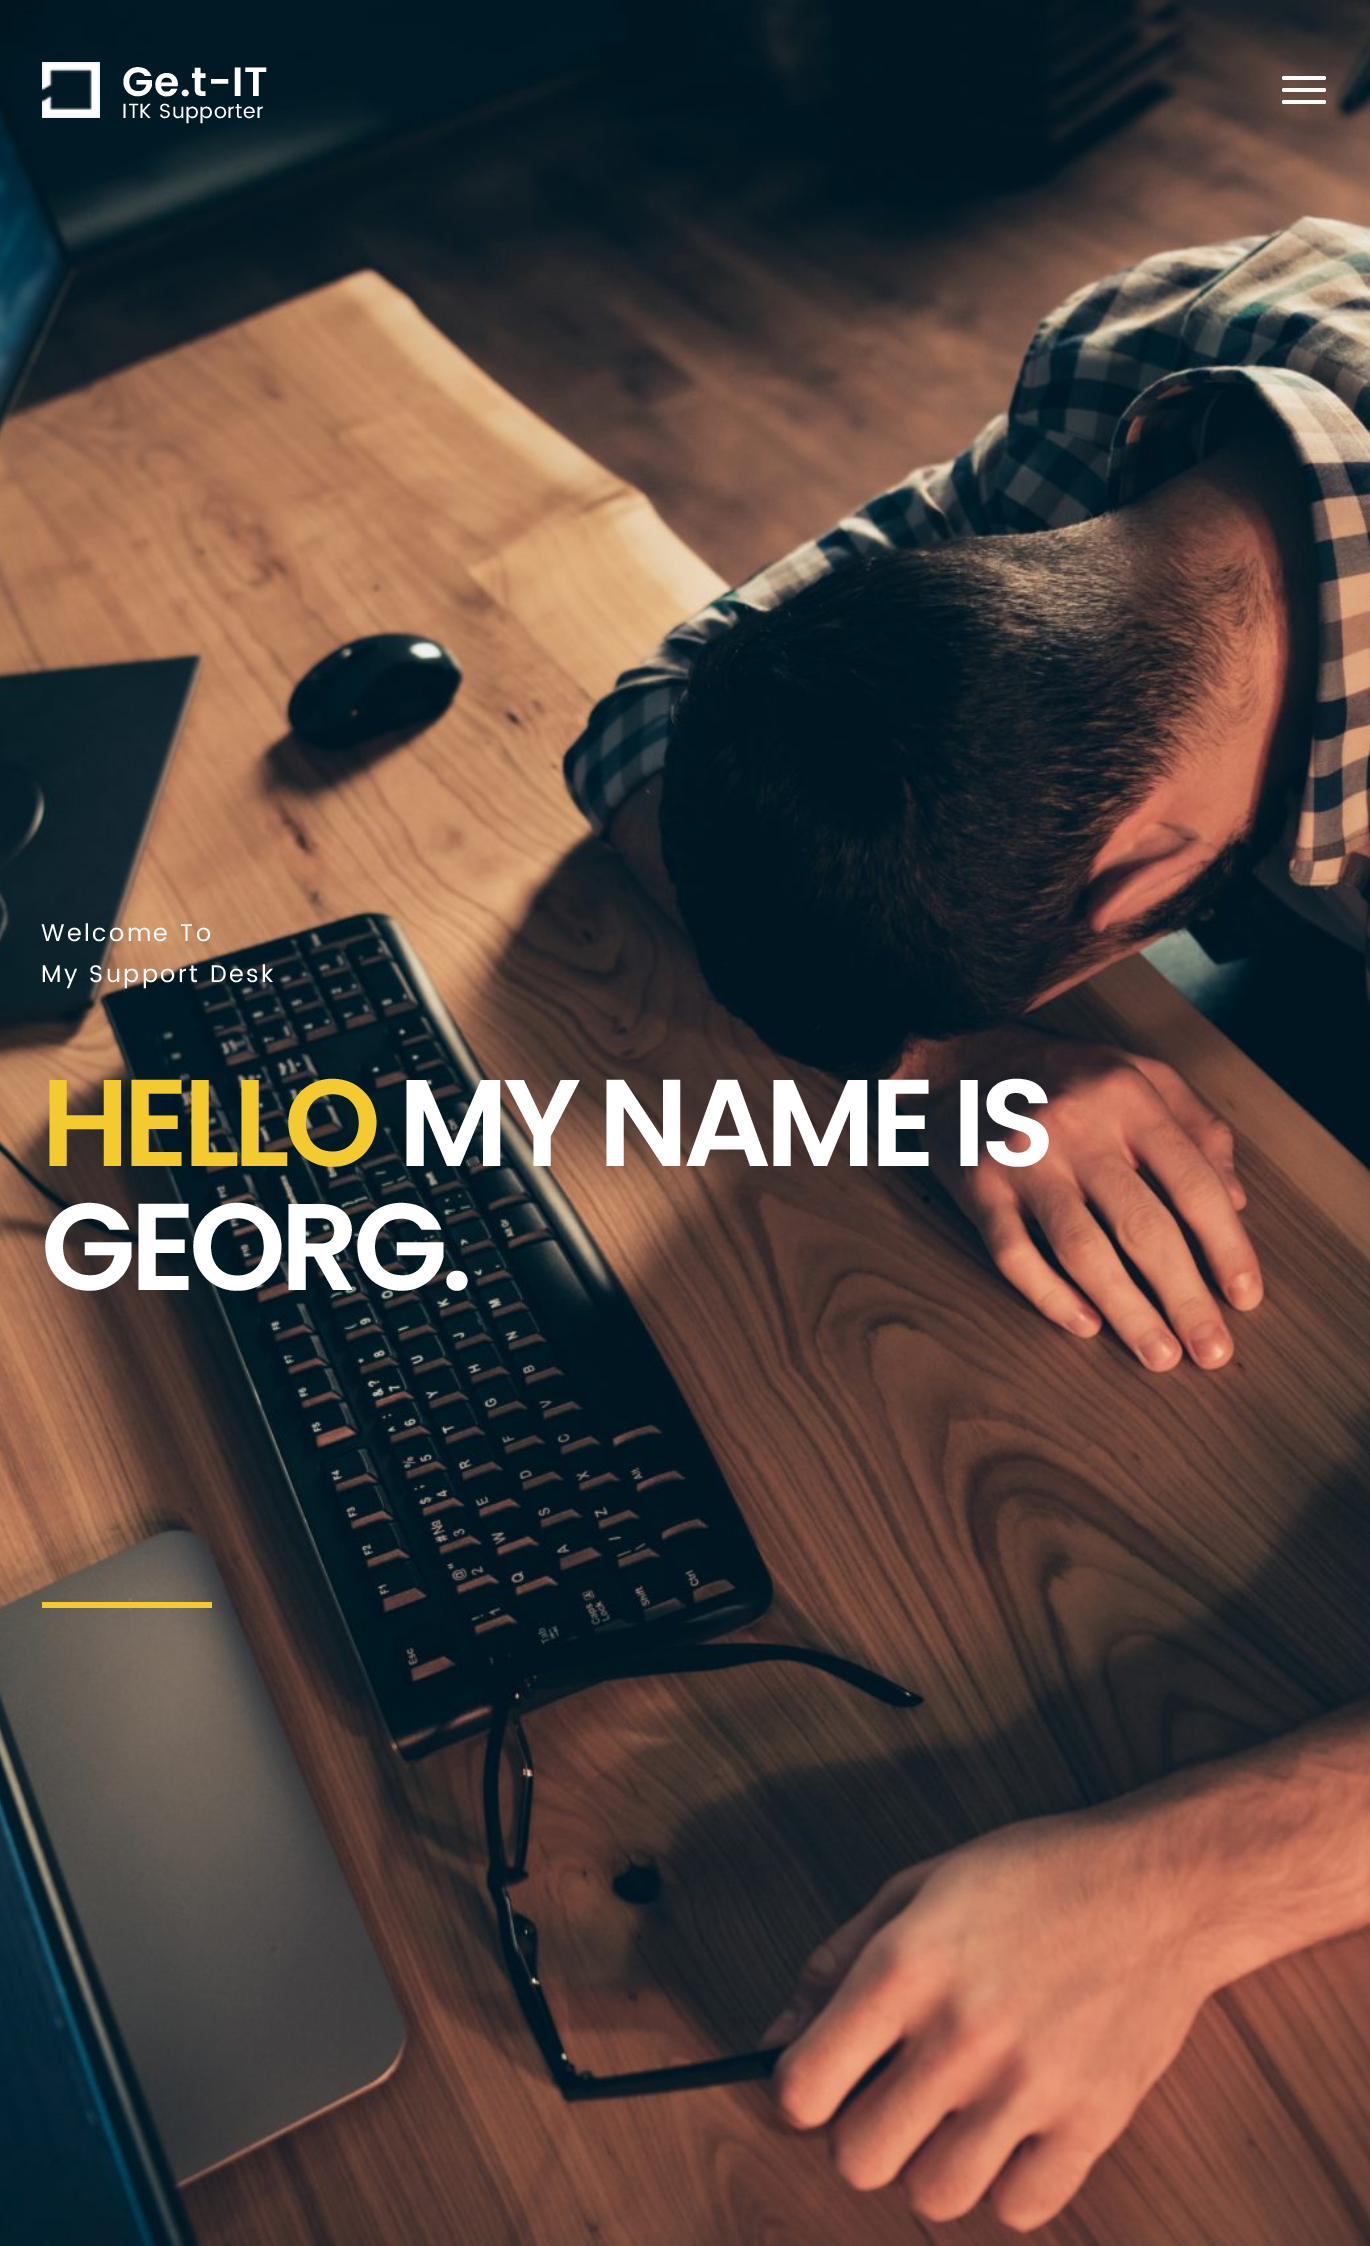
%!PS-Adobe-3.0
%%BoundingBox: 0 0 1370 2246
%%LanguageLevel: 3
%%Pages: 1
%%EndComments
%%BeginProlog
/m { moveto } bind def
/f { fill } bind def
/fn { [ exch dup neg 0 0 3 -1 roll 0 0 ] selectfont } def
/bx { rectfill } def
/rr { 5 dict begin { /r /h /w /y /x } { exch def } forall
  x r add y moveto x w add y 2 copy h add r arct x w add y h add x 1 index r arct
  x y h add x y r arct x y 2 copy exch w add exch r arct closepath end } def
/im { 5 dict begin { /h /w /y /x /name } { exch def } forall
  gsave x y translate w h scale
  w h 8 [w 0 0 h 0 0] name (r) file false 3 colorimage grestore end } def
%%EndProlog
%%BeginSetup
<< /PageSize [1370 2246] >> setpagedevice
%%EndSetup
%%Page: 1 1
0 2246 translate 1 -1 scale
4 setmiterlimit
1 setgray
0 0 1370 2246 bx
(image1.raw) 0 0 1370 2246 im
(image0.raw) 42 62 58 56 im
/Poppins-SemiBold 41 fn
122 96 m 0.6 0 (Ge.t-IT) ashow
/Poppins-Regular 20.5 fn
122 118 m 0.6 0 (ITK Supporter) ashow
1282 76 44 4 2 rr f
1282 88 44 4 2 rr f
1282 100 44 4 2 rr f
/Poppins-Regular 24 fn
41 941 m 2.4 0 (Welcome To) ashow
41 982 m 2.4 0 (My Support Desk) ashow
/Poppins-SemiBold 123.5 fn
0.953 0.792 0.184 setrgbcolor
41 1166 m -6.25 0 (HELLO) ashow
1 setgray
398 1166 m -6.25 0 (MY NAME IS) ashow
41 1290 m -6.25 0 (GEORG.) ashow
0.953 0.792 0.184 setrgbcolor
42 1602 170 6 bx
showpage
%%EOF
